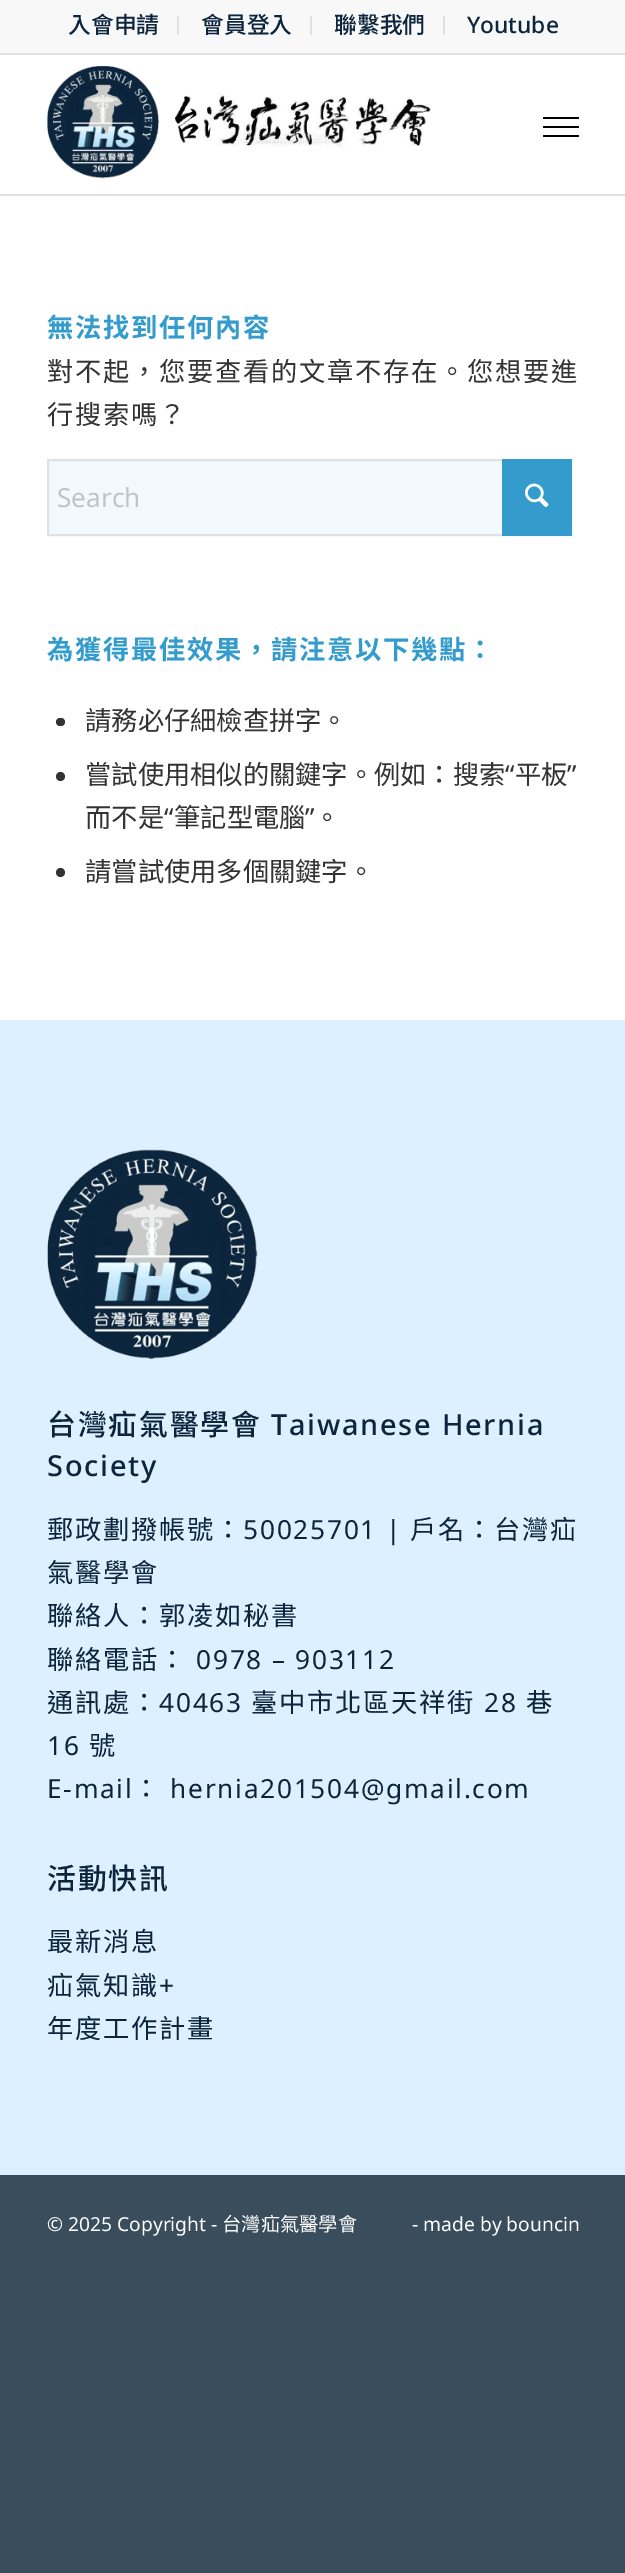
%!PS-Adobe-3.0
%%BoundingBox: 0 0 625 2573
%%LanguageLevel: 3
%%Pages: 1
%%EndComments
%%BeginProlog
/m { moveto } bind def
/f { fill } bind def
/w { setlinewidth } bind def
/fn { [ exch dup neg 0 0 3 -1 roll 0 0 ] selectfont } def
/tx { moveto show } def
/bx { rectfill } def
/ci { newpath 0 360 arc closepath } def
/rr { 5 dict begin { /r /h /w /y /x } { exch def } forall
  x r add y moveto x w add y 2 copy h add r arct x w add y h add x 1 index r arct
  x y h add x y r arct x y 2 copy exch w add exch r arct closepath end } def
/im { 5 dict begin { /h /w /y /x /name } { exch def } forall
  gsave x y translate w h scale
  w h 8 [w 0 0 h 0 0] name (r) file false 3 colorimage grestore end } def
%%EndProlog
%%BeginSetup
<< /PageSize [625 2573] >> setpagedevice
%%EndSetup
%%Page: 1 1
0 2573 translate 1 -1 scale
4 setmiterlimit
0.227 0.302 0.361 setrgbcolor
0 0 625 2573 bx
1 setgray
0 55 625 965 bx
0.973 setgray
0 0 625 53 bx
0.882 setgray
0 53 625 2 bx
177 16 2 19 bx
/NotoSansTC-Medium 22.75 fn
0.047 0.145 0.239 setrgbcolor
(入會申請) 68 33 tx
0.882 setgray
310 16 2 19 bx
0.047 0.145 0.239 setrgbcolor
(會員登入) 201 33 tx
0.882 setgray
443 16 2 19 bx
0.047 0.145 0.239 setrgbcolor
(聯繫我們) 334 33 tx
/NotoSans-Medium 22.75 fn
(Youtube) 467 33 tx
0.882 setgray
0 194 625 2 bx
(image0.raw) 47 66 384 113 im
0 setgray
543 126 36 2 1 rr f
543 117 36 2 1 rr f
543 135 36 2 1 rr f
/NotoSansTC-Bold 26.25 fn
0.2 0.612 0.804 setrgbcolor
47 337 m 1.75 0 (無法找到任何內容) ashow
/NotoSansTC-Regular 26.25 fn
0.2 setgray
47 381 m 1.75 0 (對不起，您要查看的文章不存在。您想要進) ashow
47 424 m 1.75 0 (行搜索嗎？) ashow
0.949 0.98 1 setrgbcolor
49 461 453 73 bx
0.882 setgray
2 w
48 460 523 75 rectstroke
/NotoSans-Regular 26.25 fn
0.753 0.769 0.776 setrgbcolor
(Search) 57 507 tx
0.2 0.612 0.804 setrgbcolor
502 459 70 77 bx
(image1.raw) 525 483 24 25 im
/NotoSansTC-Bold 26.25 fn
47 659 m 1.75 0 (為獲得最佳效果，請注意以下幾點：) ashow
0.2 setgray
56 718 9 8 4 rr f
/NotoSansTC-Regular 26.25 fn
(請務必仔細檢查拼字。) 85 730 tx
(嘗試使用相似的關鍵字。例如：搜索) 85 784 tx
/NotoSans-Regular 26.25 fn
(“) 505 784 tx
/NotoSansTC-Regular 26.25 fn
(平板) 515 784 tx
/NotoSans-Regular 26.25 fn
(”) 567 784 tx
60.5 776.5 4.5 ci f
/NotoSansTC-Regular 26.25 fn
(而不是) 85 827 tx
/NotoSans-Regular 26.25 fn
(“) 164 827 tx
/NotoSansTC-Regular 26.25 fn
(筆記型電腦) 174 827 tx
/NotoSans-Regular 26.25 fn
(”) 305 827 tx
/NotoSansTC-Regular 26.25 fn
(。) 314 827 tx
60.5 872.5 4.5 ci f
(請嘗試使用多個關鍵字。) 85 881 tx
0.863 0.941 1 setrgbcolor
0 1020 625 1155 bx
(image2.raw) 47 1149 211 210 im
/NotoSansTC-Medium 28.9 fn
0.047 0.145 0.239 setrgbcolor
47 1435 m 1.75 0 (台灣疝氣醫學會) ashow
/NotoSans-Medium 28.9 fn
271 1435 m 1.75 0 (Taiwanese Hernia) ashow
47 1476 m 1.75 0 (Society) ashow
/NotoSansTC-Regular 26.25 fn
47 1539 m 1.75 0 (郵政劃撥帳號：) ashow
/NotoSans-Regular 26.25 fn
243 1539 m 1.75 0 (50025701 |) ashow
/NotoSansTC-Regular 26.25 fn
410 1539 m 1.75 0 (戶名：台灣疝) ashow
47 1582 m 1.75 0 (氣醫學會) ashow
47 1625 m 1.75 0 (聯絡人：郭凌如秘書) ashow
47 1669 m 1.75 0 (聯絡電話：) ashow
/NotoSans-Regular 26.25 fn
196 1669 m 1.75 0 (0978 – 903112) ashow
/NotoSansTC-Regular 26.25 fn
47 1712 m 1.75 0 (通訊處：) ashow
/NotoSans-Regular 26.25 fn
159 1712 m 1.75 0 (40463) ashow
/NotoSansTC-Regular 26.25 fn
251 1712 m 1.75 0 (臺中市北區天祥街) ashow
/NotoSans-Regular 26.25 fn
484 1712 m 1.75 0 (28) ashow
/NotoSansTC-Regular 26.25 fn
526 1712 m 1.75 0 (巷) ashow
/NotoSans-Regular 26.25 fn
47 1755 m 1.75 0 (16) ashow
/NotoSansTC-Regular 26.25 fn
89 1755 m 1.75 0 (號) ashow
/NotoSans-Regular 26.25 fn
47 1798 m 1.75 0 (E-mail) ashow
/NotoSansTC-Regular 26.25 fn
133 1798 m 1.75 0 (：) ashow
/NotoSans-Regular 26.25 fn
170 1798 m 1.75 0 (hernia201504@gmail.com) ashow
/NotoSansTC-Medium 28.9 fn
47 1889 m 1.75 0 (活動快訊) ashow
/NotoSansTC-Regular 26.25 fn
47 1951 m 1.75 0 (最新消息) ashow
47 1995 m 1.75 0 (疝氣知識) ashow
/NotoSans-Regular 26.25 fn
159 1995 m 1.75 0 (+) ashow
/NotoSansTC-Regular 26.25 fn
47 2038 m 1.75 0 (年度工作計畫) ashow
/NotoSans-Regular 19.25 fn
1 setgray
(© 2025 Copyright -) 47 2231 tx
/NotoSansTC-Regular 19.25 fn
(台灣疝氣醫學會) 222 2231 tx
/NotoSans-Regular 19.25 fn
(- made by bouncin) 412 2231 tx
showpage
%%EOF
